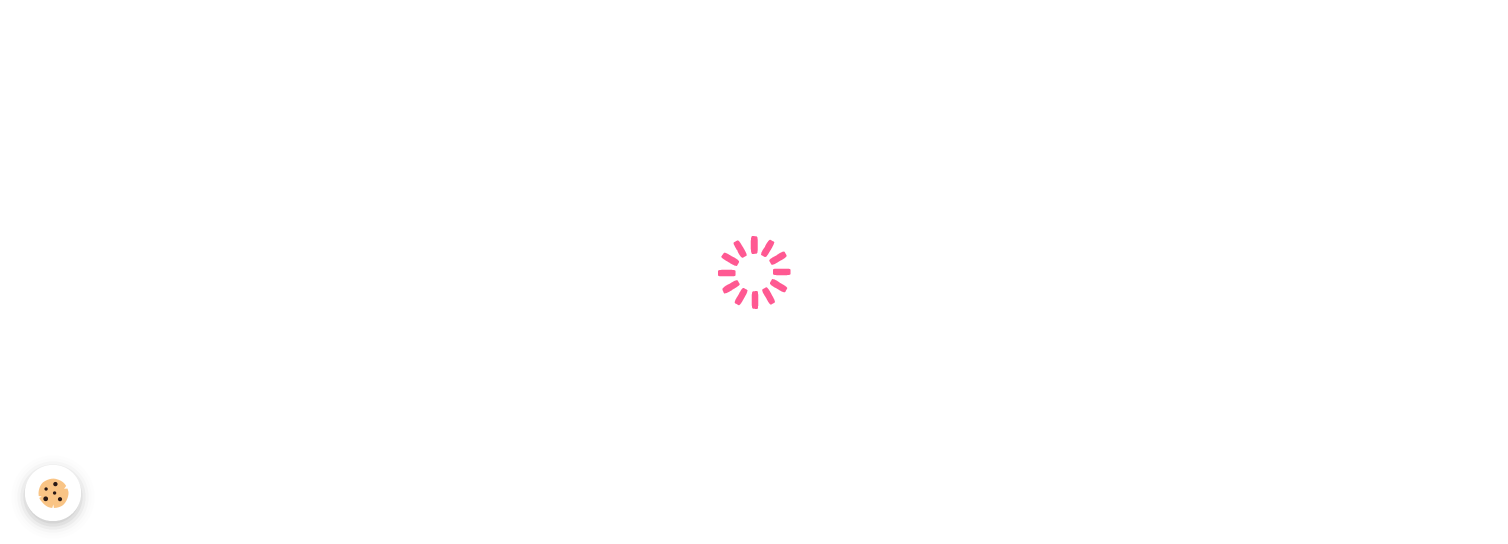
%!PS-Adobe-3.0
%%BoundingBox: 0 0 1508 544
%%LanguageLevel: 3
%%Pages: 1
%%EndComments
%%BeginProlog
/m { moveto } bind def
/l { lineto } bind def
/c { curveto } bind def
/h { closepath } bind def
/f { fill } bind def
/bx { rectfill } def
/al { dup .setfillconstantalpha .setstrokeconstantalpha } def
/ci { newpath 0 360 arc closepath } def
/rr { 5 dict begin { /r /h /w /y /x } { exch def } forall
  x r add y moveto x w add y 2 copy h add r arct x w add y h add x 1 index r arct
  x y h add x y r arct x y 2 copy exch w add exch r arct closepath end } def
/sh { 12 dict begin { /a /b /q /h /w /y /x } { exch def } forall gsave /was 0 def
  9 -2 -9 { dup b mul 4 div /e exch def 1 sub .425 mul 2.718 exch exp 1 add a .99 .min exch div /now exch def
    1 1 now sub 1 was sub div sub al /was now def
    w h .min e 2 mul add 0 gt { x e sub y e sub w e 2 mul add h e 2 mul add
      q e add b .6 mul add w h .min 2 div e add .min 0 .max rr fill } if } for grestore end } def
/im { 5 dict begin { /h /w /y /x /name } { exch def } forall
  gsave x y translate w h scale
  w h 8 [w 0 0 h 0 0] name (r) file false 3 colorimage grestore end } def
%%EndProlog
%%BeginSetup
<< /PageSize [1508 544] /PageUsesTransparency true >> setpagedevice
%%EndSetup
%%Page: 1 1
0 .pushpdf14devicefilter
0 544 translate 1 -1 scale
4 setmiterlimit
1 setgray
0 0 1508 544 bx
1 0.349 0.573 setrgbcolor
752.5 236 m 756.5 236.5 l 758 237 757.5 243.5 757.5 245 c 757.5 246.5 758 253 756.5 253.5 c 752.5 254 l 750.5 253.5 751 245.5 751 245 c 751 244.5 750.5 236 752.5 236 c h 770.5 240 m 774 242 l 774.5 243.5 771 249 770.5 250 c 769.5 251 767 257 765 257 c 761.5 255 l 760 254 764.5 247.5 765 247 c 765 246.5 769 239 770.5 240 c h f
784.5 252 m 786.5 255.5 l 786.5 257.5 780.5 260.5 779.5 261 c 778.5 261.5 773 265.5 771.5 264.5 c 769.5 261 l 768.5 259.5 775.5 256 776.5 255.5 c 777 255 783.5 250.5 784.5 252 c h 790.5 270 m 790.5 274 l 789.5 275.5 783 275 782 275 c 780.5 275 774 275.5 773 274 c 773 270 l 773 268 781 269 782 269 c 782.5 269 790.5 268 790.5 270 c h 787 288.5 m 785 292 l 783.5 293 778 289 777 288.5 c 776 288 770 285 770 283 c 772 279.5 l 773 278 779.5 282.5 780 283 c 780.5 283.5 788 287 787 288.5 c h f
774.5 302.5 m 771 304.5 l 769.5 304.5 766.5 298.5 766 297.5 c 765.5 296.5 761.5 291 762.5 289.5 c 766 287.5 l 767.5 286.5 771 294 771.5 294.5 c 771.5 295 776 302 774.5 302.5 c h 757 309 m 753 308.5 l 751.5 308 752 301.5 752 300 c 752 298.5 751.5 292 753 291.5 c 757 291 l 758.5 291.5 758 299.5 758 300 c 758 300.5 758.5 309 757 309 c h 738.5 305 m 735 303 l 734 301.5 738 296 738.5 295 c 739 294 742 288 743.5 288 c 747 290 l 748.5 291 744 297.5 744 298 c 743.5 298.5 740 306 738.5 305 c h f
724 293 m 722.5 289.5 l 722.5 287.5 728 284.5 729.5 284 c 730.5 283.5 736 279.5 737.5 280.5 c 739.5 284 l 740 285.5 733 289 732.5 289.5 c 732 290 725 294.5 724 293 c h 718 275 m 718 271 l 719 269.5 725.5 270 727 270 c 728 270 734.5 269.5 735.5 271 c 735.5 275 l 735.5 277 727.5 276 727 276 c 726 276 718 277 718 275 c h 721.5 256.5 m 724 253 l 725.5 252 730.5 256 732 256.5 c 733 257 739 260 739 262 c 737 265.5 l 736 267 729.5 262.5 728.5 262 c 728 261.5 721 258 721.5 256.5 c h f
734 242.5 m 737.5 240.5 l 739.5 240.5 742 246.5 743 247.5 c 743.5 248.5 747 254 746.5 255.5 c 743 257.5 l 741 258.5 737.5 251 737.5 250.5 c 737 250 732.5 243 734 242.5 c h f
0 setgray
25 469 56 56 28 6 0.24 sh
1 setgray
53 493 28 ci f
(image0.raw) 38 478 31 30 im
.poppdf14devicefilter showpage
%%EOF
